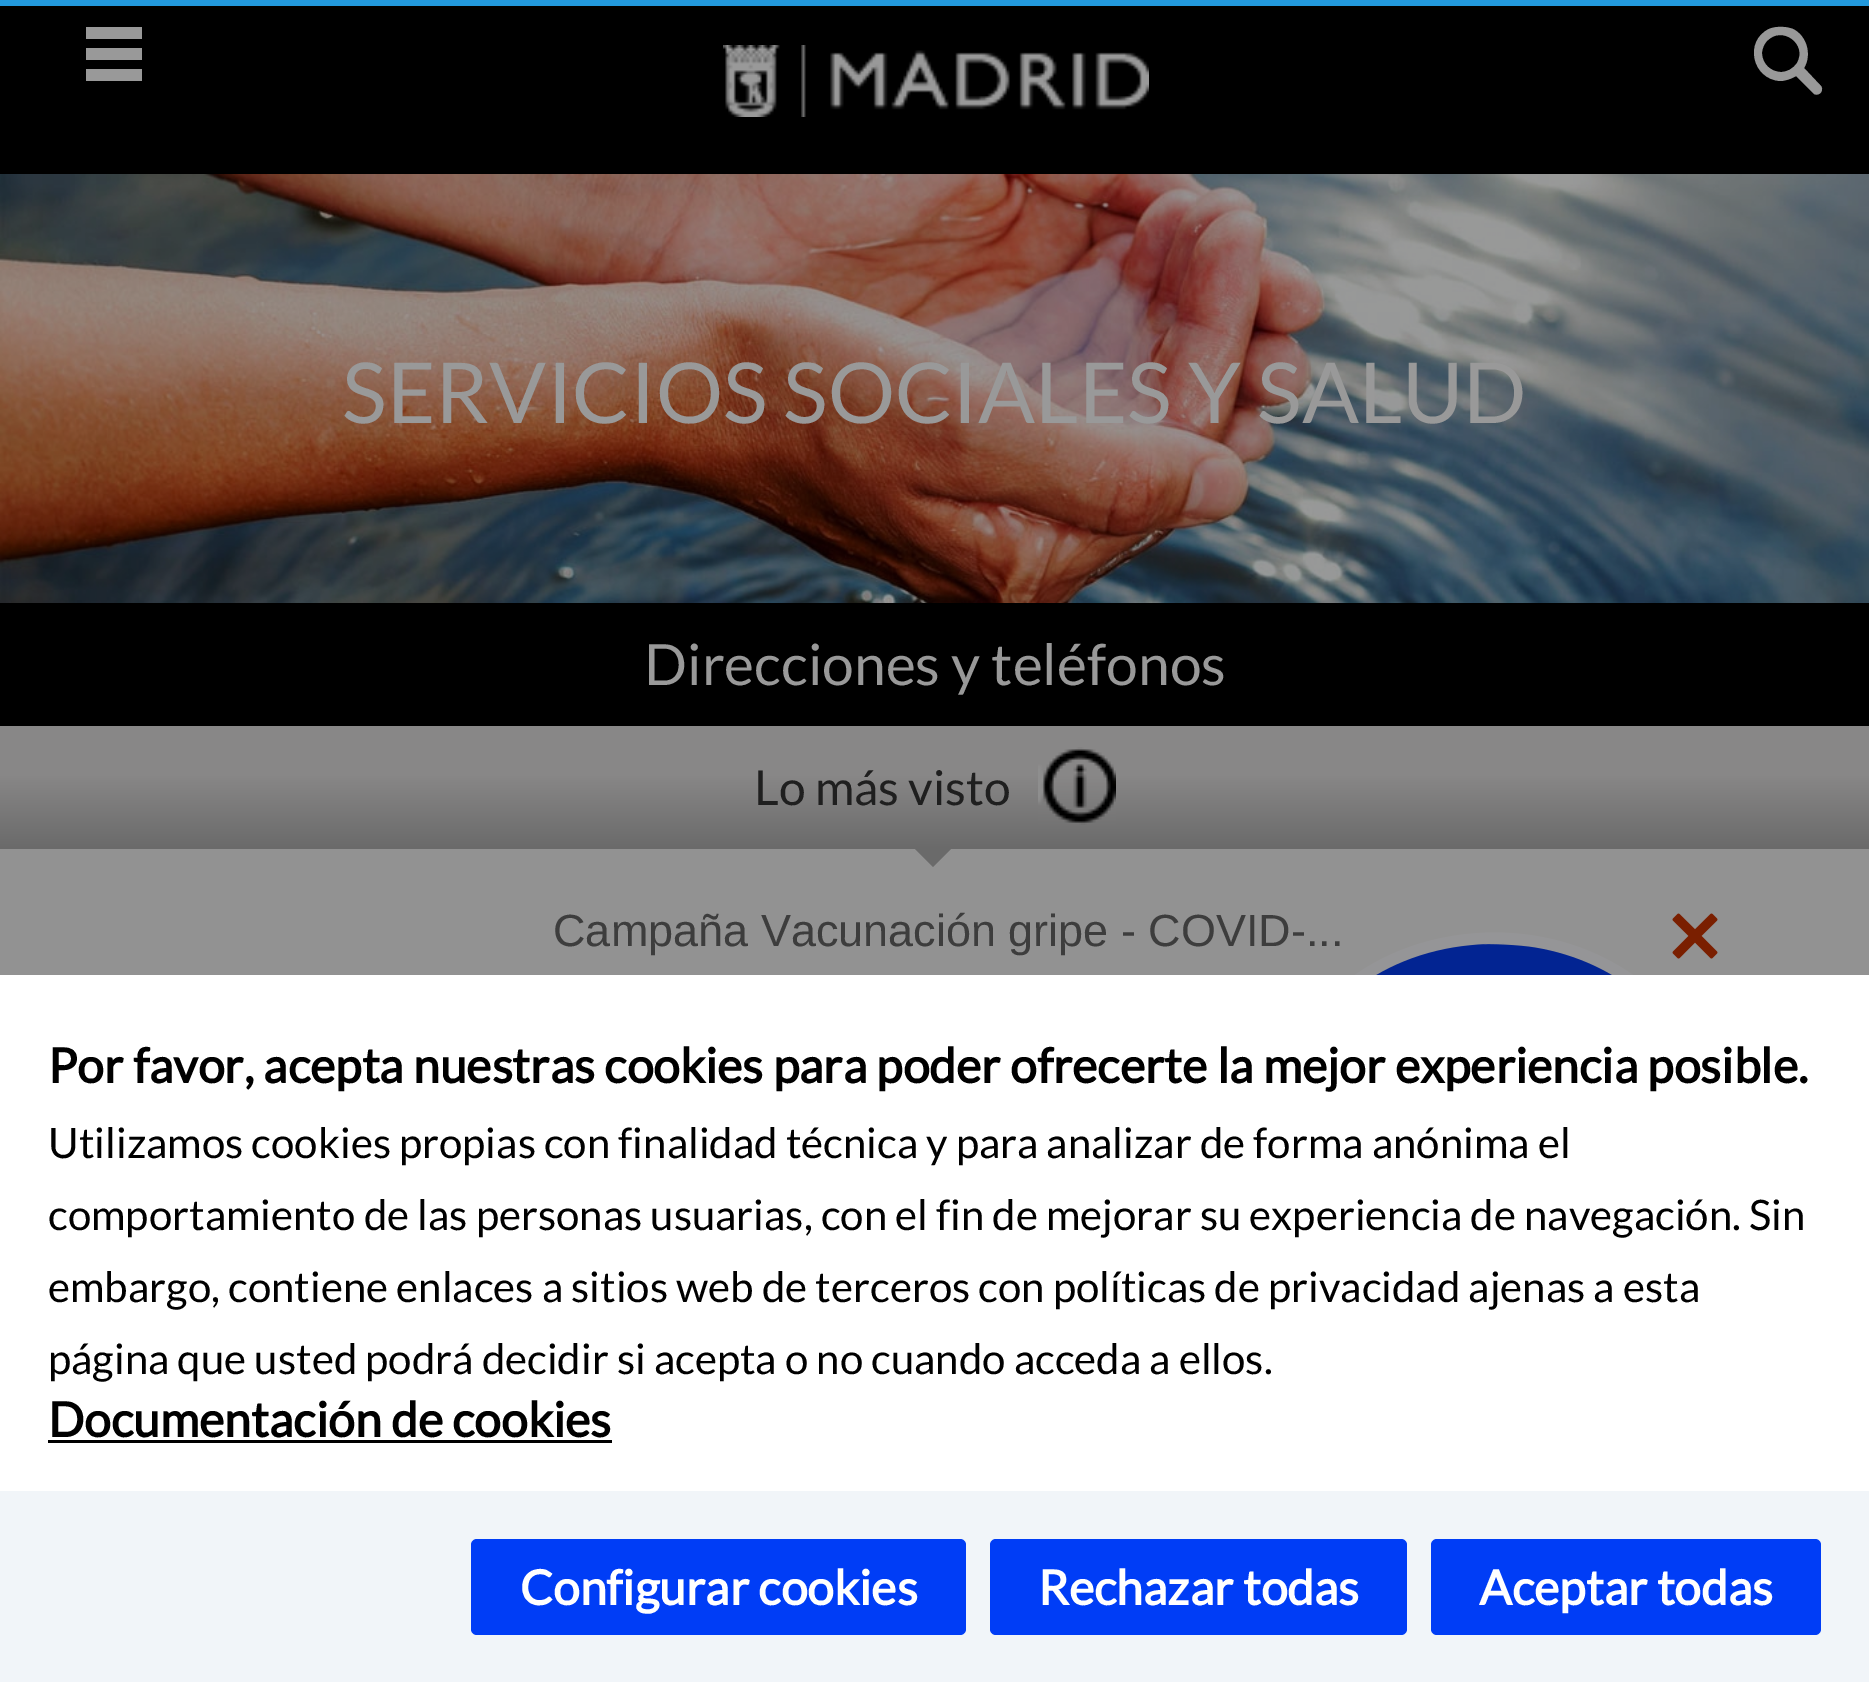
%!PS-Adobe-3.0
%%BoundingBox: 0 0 1869 1682
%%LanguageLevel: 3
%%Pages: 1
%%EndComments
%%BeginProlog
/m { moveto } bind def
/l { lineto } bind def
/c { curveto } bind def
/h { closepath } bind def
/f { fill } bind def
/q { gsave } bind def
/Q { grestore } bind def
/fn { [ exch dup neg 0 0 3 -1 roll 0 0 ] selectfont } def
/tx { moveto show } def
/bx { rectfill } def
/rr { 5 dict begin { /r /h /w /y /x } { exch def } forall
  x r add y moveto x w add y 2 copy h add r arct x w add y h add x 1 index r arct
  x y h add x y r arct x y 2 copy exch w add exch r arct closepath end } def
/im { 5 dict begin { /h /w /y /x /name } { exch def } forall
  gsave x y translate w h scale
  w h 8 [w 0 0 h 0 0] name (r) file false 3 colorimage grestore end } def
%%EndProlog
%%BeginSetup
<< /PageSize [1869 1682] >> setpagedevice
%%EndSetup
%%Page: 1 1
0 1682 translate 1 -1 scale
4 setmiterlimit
0.573 setgray
0 0 1869 1682 bx
0.133 0.6 0.867 setrgbcolor
0 0 1869 6 bx
0 setgray
0 6 1869 168 bx
0.6 setgray
86 27 m 86 39 l 142 39 l 142 27 l h 86 60 m 142 60 l 142 48 l 86 48 l h 86 81 m 142 81 l 142 69 l 86 69 l h f
(image0.raw) 723 45 426 72 im
1820 85 m 1804 68 l 1812 55 1807 36 1793 29 c 1785 26 1776 26 1769 29 c 1744 41 1752 79 1780 81 c 1785 81 1791 79 1796 76 c 1814 94 l 1820 97 1825 89 1820 85 c h 1781 72 m 1771 72 1762 64 1762 53 c 1762 49 1764 44 1767 41 c 1782 25 1808 44 1797 63 c 1793 69 1787 72 1781 72 c h f
(image1.raw) 0 174 1869 429 im
/Lato-Regular 84 fn
(SERVICIOS SOCIALES Y SALUD) 342 423 tx
0 setgray
0 603 1869 123 bx
/Lato-Regular 57 fn
0.6 setgray
(Direcciones y teléfonos) 644 685 tx
q 0 726 m 1869 726 l 1869 849 l 0 849 l h clip newpath
<< /ShadingType 2 /ColorSpace /DeviceRGB /Coords [935 726 935 849] /Extend [true true] /Function << /FunctionType 3 /Domain [0 1] /Functions [<< /FunctionType 2 /Domain [0 1] /C0 [0.533 0.529 0.529] /C1 [0.533 0.529 0.529] /N 1 >> << /FunctionType 2 /Domain [0 1] /C0 [0.533 0.529 0.529] /C1 [0.416 0.416 0.416] /N 1 >>] /Bounds [0.4] /Encode [0 1 0 1] >> >> shfill Q
/Lato-Regular 48 fn
0.122 setgray
(Lo más visto) 754 805 tx
(image2.raw) 1038 747 78 78 im
0.416 setgray
915 849 m 951 849 l 933 867 l h f
/LiberationSans-Regular 45 fn
0.239 setgray
(Campaña Vacunación gripe - COVID-...) 553 946 tx
(image3.raw) 1354 932 280 43 im
(image4.raw) 1672 913 46 46 im
1 setgray
0 975 1869 516 bx
/Lato-Bold 48 fn
0 setgray
(Por favor, acepta nuestras cookies para poder ofrecerte la mejor experiencia posible.) 48 1083 tx
/Lato-Regular 42 fn
(Utilizamos cookies propias con finalidad técnica y para analizar de forma anónima el) 48 1158 tx
(comportamiento de las personas usuarias, con el fin de mejorar su experiencia de navegación. Sin) 48 1230 tx
(embargo, contiene enlaces a sitios web de terceros con políticas de privacidad ajenas a esta) 48 1302 tx
(página que usted podrá decidir si acepta o no cuando acceda a ellos.) 48 1374 tx
/Lato-Bold 48 fn
(Documentación de cookies) 48 1437 tx
48 1440 564 3 bx
0.945 0.961 0.976 setrgbcolor
0 1491 1869 191 bx
0 0.239 0.965 setrgbcolor
471 1539 495 96 6 rr f
1 setgray
(Configurar cookies) 520 1605 tx
0 0.239 0.965 setrgbcolor
990 1539 417 96 6 rr f
1 setgray
(Rechazar todas) 1038 1605 tx
0 0.239 0.965 setrgbcolor
1431 1539 390 96 6 rr f
1 setgray
(Aceptar todas) 1479 1605 tx
showpage
%%EOF
